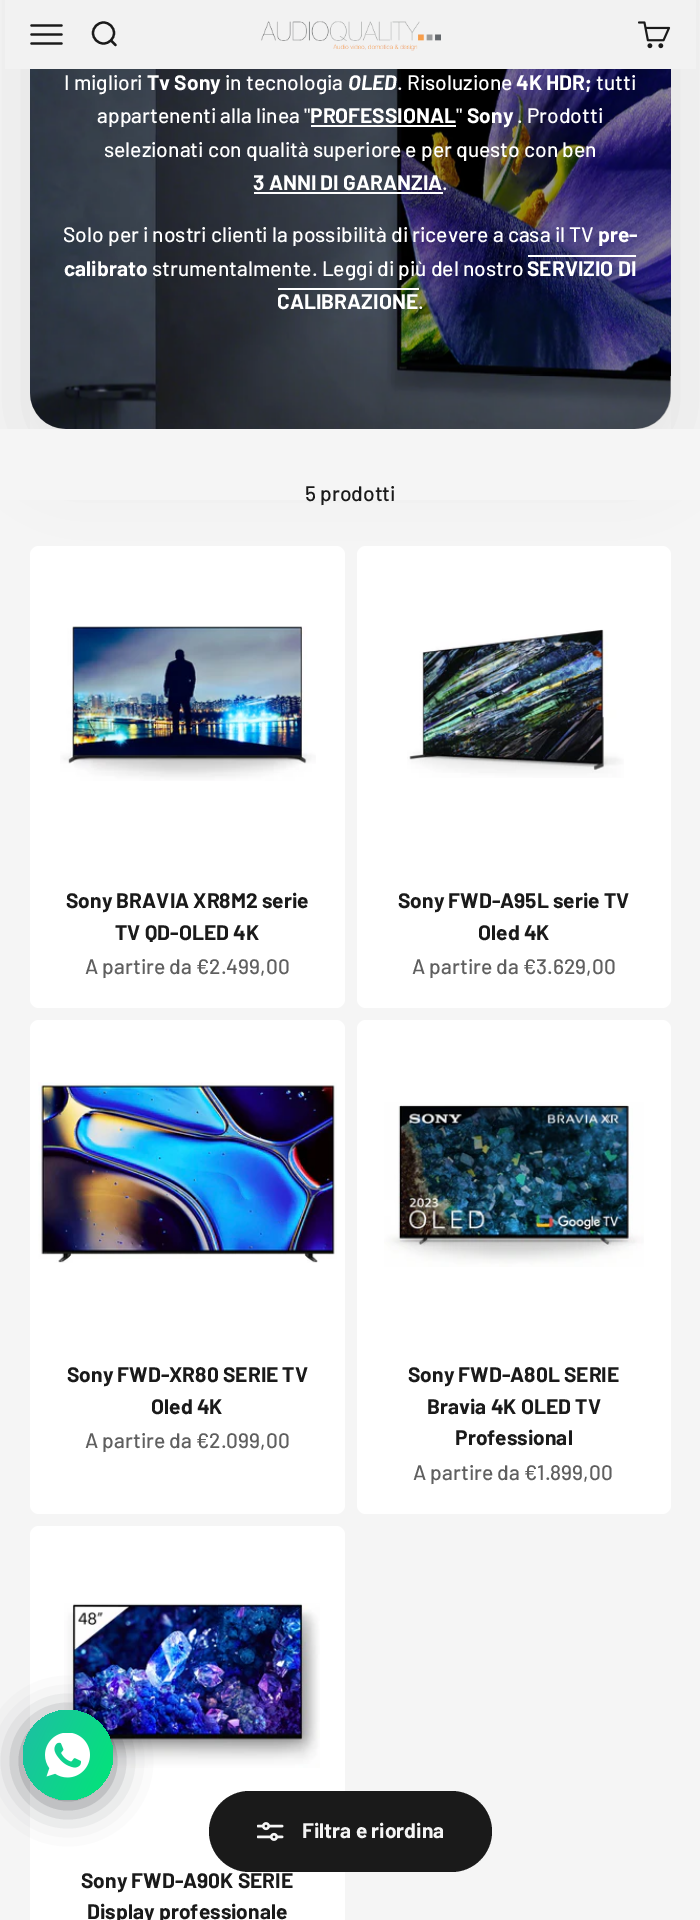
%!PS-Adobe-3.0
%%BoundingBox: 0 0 700 1920
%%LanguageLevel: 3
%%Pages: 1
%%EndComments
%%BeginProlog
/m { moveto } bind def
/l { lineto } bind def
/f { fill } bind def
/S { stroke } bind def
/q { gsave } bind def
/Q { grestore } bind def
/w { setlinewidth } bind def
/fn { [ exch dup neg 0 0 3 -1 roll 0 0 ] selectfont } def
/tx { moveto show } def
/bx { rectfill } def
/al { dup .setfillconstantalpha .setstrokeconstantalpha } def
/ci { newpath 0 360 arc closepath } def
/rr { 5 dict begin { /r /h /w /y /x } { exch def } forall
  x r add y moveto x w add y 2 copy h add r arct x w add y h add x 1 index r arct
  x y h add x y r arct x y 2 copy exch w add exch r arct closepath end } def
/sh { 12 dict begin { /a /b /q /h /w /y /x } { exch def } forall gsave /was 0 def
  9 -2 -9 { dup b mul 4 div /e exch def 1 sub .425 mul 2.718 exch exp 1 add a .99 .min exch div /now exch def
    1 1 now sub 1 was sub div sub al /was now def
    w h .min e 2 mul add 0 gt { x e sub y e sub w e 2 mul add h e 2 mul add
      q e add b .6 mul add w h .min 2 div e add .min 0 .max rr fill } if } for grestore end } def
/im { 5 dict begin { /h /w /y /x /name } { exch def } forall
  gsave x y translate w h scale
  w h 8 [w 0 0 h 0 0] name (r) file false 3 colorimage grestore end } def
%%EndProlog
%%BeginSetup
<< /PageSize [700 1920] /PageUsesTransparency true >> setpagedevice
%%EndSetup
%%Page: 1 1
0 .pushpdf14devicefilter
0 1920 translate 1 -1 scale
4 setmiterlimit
0.961 setgray
0 0 700 1920 bx
0.102 setgray
30 -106 641 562 36 37.5 0.1 sh
(image2.raw) 30 69 641 360 im
0.3 al
0 setgray
30 -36 641 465 36 rr f
1 al
0.949 setgray
5 0 691 69 bx
0.102 setgray
2.2 w
1 setlinecap
31.5 25.5 m 61.5 25.5 l 31.5 34.5 m 61.5 34.5 l 31.5 43.5 m 61.5 43.5 l S
0 setlinecap
103.5 33 10.5 ci S
1 setlinecap
1 setlinejoin
111 40.5 m 115.5 45 l S
(image0.raw) 261 21 180 30 im
(image1.raw) 638 21 33 28 im
/Barlow-Medium 21 fn
1 setgray
(I migliori) 64 90 tx
/Barlow-Bold 21 fn
(Tv Sony) 147 90 tx
/Barlow-Medium 21 fn
(in tecnologia) 225 90 tx
/Barlow-BoldItalic 21 fn
(OLED) 348 90 tx
/Barlow-Medium 21 fn
(. Risoluzione) 397 90 tx
/Barlow-Bold 21 fn
(4K HDR;) 516 90 tx
/Barlow-Medium 21 fn
(tutti) 596 90 tx
(appartenenti alla linea ") 97 123 tx
/Barlow-Bold 21 fn
(PROFESSIONAL) 310 123 tx
311 125 145 2 bx
/Barlow-Medium 21 fn
(") 456 123 tx
/Barlow-Bold 21 fn
(Sony) 467 123 tx
/Barlow-Medium 21 fn
(. Prodotti) 517 123 tx
(selezionati con qualità superiore e per questo con ben) 104 157 tx
/Barlow-Bold 21 fn
(3 ANNI DI GARANZIA) 253 190 tx
254 192 189 2 bx
/Barlow-Medium 21 fn
(.) 442 190 tx
(Solo per i nostri clienti la possibilità di ricevere a casa il TV) 63 242 tx
/Barlow-Bold 21 fn
(pre-) 598 242 tx
(calibrato) 64 276 tx
/Barlow-Medium 21 fn
(strumentalmente. Leggi di più del nostro) 152 276 tx
/Barlow-Bold 21 fn
(SERVIZIO DI) 527 276 tx
528 255 108 2 bx
(CALIBRAZIONE) 277 309 tx
278 288 141 2 bx
/Barlow-Medium 21 fn
(.) 418 309 tx
0.961 setgray
0 429 700 71 bx
0.102 setgray
(5 prodotti) 305 501 tx
1 setgray
30 546 315 462 9 rr f
(image3.raw) 60 626 256 155 im
/Barlow-Bold 21 fn
0.102 setgray
(Sony BRAVIA XR8M2 serie) 66 908 tx
(TV QD-OLED 4K) 115 940 tx
/Barlow-Medium 21 fn
0.373 setgray
(A partire da €2.499,00) 85 974 tx
1 setgray
357 546 314 462 9 rr f
(image4.raw) 407 629 217 149 im
/Barlow-Bold 21 fn
0.102 setgray
(Sony FWD-A95L serie TV) 398 908 tx
(Oled 4K) 478 940 tx
/Barlow-Medium 21 fn
0.373 setgray
(A partire da €3.629,00) 412 974 tx
1 setgray
30 1020 315 494 9 rr f
(image5.raw) 38 1082 299 181 im
/Barlow-Bold 21 fn
0.102 setgray
(Sony FWD-XR80 SERIE TV) 67 1382 tx
(Oled 4K) 151 1414 tx
/Barlow-Medium 21 fn
0.373 setgray
(A partire da €2.099,00) 85 1448 tx
1 setgray
357 1020 314 494 9 rr f
(image6.raw) 384 1102 260 165 im
/Barlow-Bold 21 fn
0.102 setgray
(Sony FWD-A80L SERIE) 408 1382 tx
(Bravia 4K OLED TV) 427 1414 tx
(Professional) 455 1445 tx
/Barlow-Medium 21 fn
0.373 setgray
(A partire da €1.899,00) 413 1480 tx
1 setgray
30 1526 315 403 9 rr f
(image7.raw) 64 1603 256 165 im
/Barlow-Bold 21 fn
0.102 setgray
(Sony FWD-A90K SERIE) 81 1888 tx
(Display professionale) 87 1919 tx
209 1791 283 81 40.5 rr f
(image8.raw) 257 1822 27 19 im
0.961 setgray
(Filtra e riordina) 302 1838 tx
0.008 0.024 0.063 setrgbcolor
23 1716 90 90 45 18 0.5 sh
q 68 1755 45 ci clip newpath
<< /ShadingType 2 /ColorSpace /DeviceRGB /Coords [13 1730 122 1780] /Extend [true true] /Function << /FunctionType 2 /Domain [0 1] /C0 [0.118 0.745 0.647] /C1 [0.004 0.902 0.467] /N 1 >> >> shfill Q
(image9.raw) 45 1733 45 45 im
.poppdf14devicefilter showpage
%%EOF
